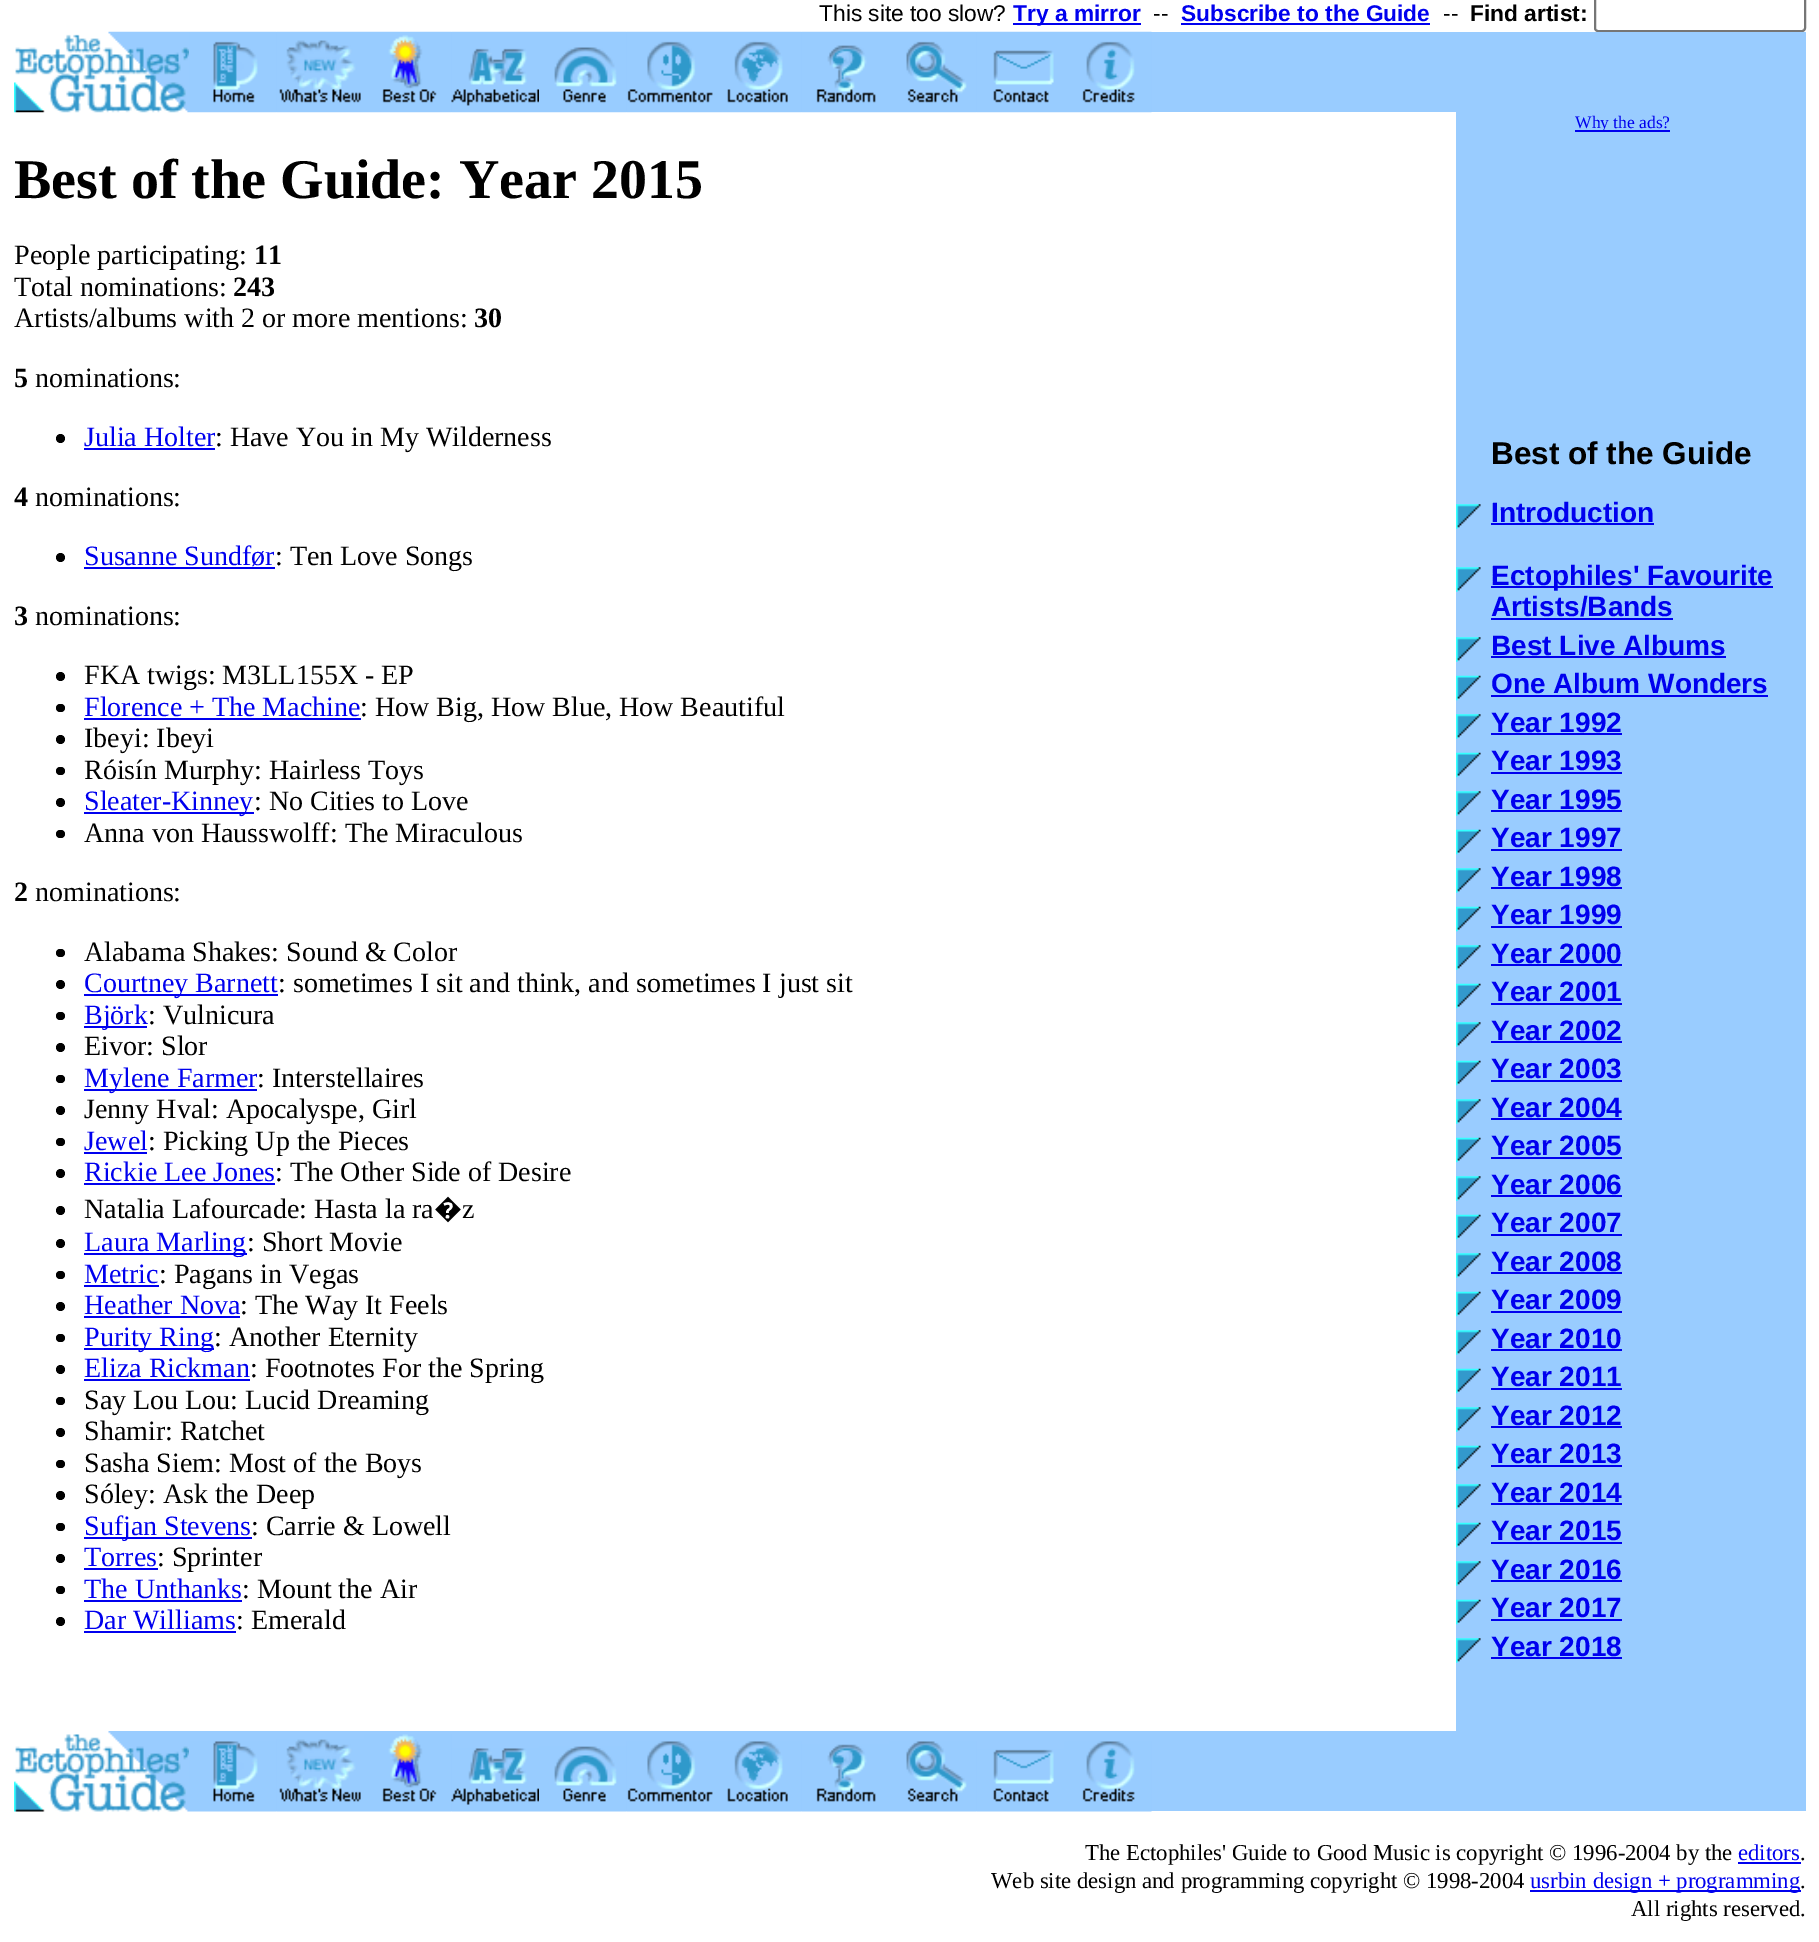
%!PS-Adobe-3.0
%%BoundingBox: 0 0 1819 1942
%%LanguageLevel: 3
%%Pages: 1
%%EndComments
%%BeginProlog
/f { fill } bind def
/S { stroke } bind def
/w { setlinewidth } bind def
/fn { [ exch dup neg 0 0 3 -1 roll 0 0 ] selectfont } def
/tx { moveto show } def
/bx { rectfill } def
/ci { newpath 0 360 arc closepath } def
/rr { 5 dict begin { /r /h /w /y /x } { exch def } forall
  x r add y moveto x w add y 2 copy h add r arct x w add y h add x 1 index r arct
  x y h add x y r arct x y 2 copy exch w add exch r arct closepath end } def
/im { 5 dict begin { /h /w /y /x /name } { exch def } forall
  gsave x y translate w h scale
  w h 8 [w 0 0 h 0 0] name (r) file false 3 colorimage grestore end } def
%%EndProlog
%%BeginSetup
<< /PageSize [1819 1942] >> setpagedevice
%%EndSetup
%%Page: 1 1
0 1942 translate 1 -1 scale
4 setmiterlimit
1 setgray
0 0 1819 1942 bx
/LiberationSans-Regular 22.75 fn
0 setgray
(This site too slow?) 819 21 tx
0 0 0.933 setrgbcolor
1013 23 128 2 bx
/LiberationSans-Bold 22.75 fn
(Try a mirror) 1013 21 tx
/LiberationSans-Regular 22.75 fn
0 setgray
(--) 1153 21 tx
/LiberationSans-Bold 22.75 fn
0 0 0.933 setrgbcolor
(Subscribe to the Guide) 1181 21 tx
1181 23 249 2 bx
/LiberationSans-Regular 22.75 fn
0 setgray
(--) 1443 21 tx
/LiberationSans-Bold 22.75 fn
(Find artist:) 1470 21 tx
0.463 setgray
2 w
1595 -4 210 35 3 rr S
(image0.raw) 14 31 175 82 im
0.6 0.8 1 setrgbcolor
276 32 1530 80 bx
(image1.raw) 189 31 88 82 im
(image2.raw) 276 31 88 82 im
(image3.raw) 364 31 88 82 im
(image4.raw) 451 31 88 82 im
(image5.raw) 539 31 88 82 im
(image6.raw) 626 31 88 82 im
(image7.raw) 714 31 88 82 im
(image8.raw) 801 31 88 82 im
(image9.raw) 889 31 88 82 im
(image10.raw) 976 31 88 82 im
(image11.raw) 1064 31 88 82 im
/LiberationSerif-Bold 56 fn
0 setgray
(Best of the Guide: Year 2015) 14 198 tx
/LiberationSerif-Regular 28 fn
(People participating:) 14 264 tx
/LiberationSerif-Bold 28 fn
(11) 254 264 tx
/LiberationSerif-Regular 28 fn
(Total nominations:) 14 296 tx
/LiberationSerif-Bold 28 fn
(243) 233 296 tx
/LiberationSerif-Regular 28 fn
(Artists/albums with 2 or more mentions:) 14 327 tx
/LiberationSerif-Bold 28 fn
(30) 474 327 tx
(5) 14 387 tx
/LiberationSerif-Regular 28 fn
(nominations:) 35 387 tx
60.5 438.5 4.5 ci f
0 0 0.933 setrgbcolor
(Julia Holter) 84 446 tx
84 448 131 2 bx
0 setgray
(: Have You in My Wilderness) 215 446 tx
/LiberationSerif-Bold 28 fn
(4) 14 506 tx
/LiberationSerif-Regular 28 fn
(nominations:) 35 506 tx
60.5 557.5 4.5 ci f
0 0 0.933 setrgbcolor
(Susanne Sundfør) 84 565 tx
84 567 191 2 bx
0 setgray
(: Ten Love Songs) 275 565 tx
/LiberationSerif-Bold 28 fn
(3) 14 625 tx
/LiberationSerif-Regular 28 fn
(nominations:) 35 625 tx
60.5 676.5 4.5 ci f
(FKA twigs: M3LL155X - EP) 84 684 tx
56 704 9 8 4 rr f
0 0 0.933 setrgbcolor
(Florence + The Machine) 84 716 tx
84 718 277 2 bx
0 setgray
(: How Big, How Blue, How Beautiful) 360 716 tx
60.5 739.5 4.5 ci f
(Ibeyi: Ibeyi) 84 747 tx
56 767 9 8 4 rr f
(Róisín Murphy: Hairless Toys) 84 779 tx
60.5 802.5 4.5 ci f
0 0 0.933 setrgbcolor
84 812 170 2 bx
(Sleater-Kinney) 84 810 tx
0 setgray
(: No Cities to Love) 254 810 tx
56 830 9 8 4 rr f
(Anna von Hausswolff: The Miraculous) 84 842 tx
/LiberationSerif-Bold 28 fn
(2) 14 901 tx
/LiberationSerif-Regular 28 fn
(nominations:) 35 901 tx
56 949 9 8 4 rr f
(Alabama Shakes: Sound & Color) 84 961 tx
60.5 984.5 4.5 ci f
0 0 0.933 setrgbcolor
84 994 194 2 bx
(Courtney Barnett) 84 992 tx
0 setgray
(: sometimes I sit and think, and sometimes I just sit) 278 992 tx
56 1012 9 8 4 rr f
0 0 0.933 setrgbcolor
84 1026 63 2 bx
(Björk) 84 1024 tx
0 setgray
(: Vulnicura) 148 1024 tx
60.5 1047.5 4.5 ci f
(Eivor: Slor) 84 1055 tx
56 1075 9 8 4 rr f
0 0 0.933 setrgbcolor
84 1089 173 2 bx
(Mylene Farmer) 84 1087 tx
0 setgray
(: Interstellaires) 257 1087 tx
60.5 1110.5 4.5 ci f
(Jenny Hval: Apocalyspe, Girl) 84 1118 tx
56 1138 9 8 4 rr f
0 0 0.933 setrgbcolor
(Jewel) 84 1150 tx
84 1152 63 2 bx
0 setgray
(: Picking Up the Pieces) 148 1150 tx
60.5 1173.5 4.5 ci f
0 0 0.933 setrgbcolor
(Rickie Lee Jones) 84 1181 tx
84 1183 191 2 bx
0 setgray
(: The Other Side of Desire) 275 1181 tx
60.5 1210.5 4.5 ci f
(Natalia Lafourcade: Hasta la ra) 84 1218 tx
/NotoSans-Regular 28 fn
(�) 434 1218 tx
/LiberationSerif-Regular 28 fn
(z) 462 1218 tx
60.5 1243.5 4.5 ci f
0 0 0.933 setrgbcolor
84 1253 163 2 bx
(Laura Marling) 84 1251 tx
0 setgray
(: Short Movie) 247 1251 tx
56 1271 9 8 4 rr f
0 0 0.933 setrgbcolor
(Metric) 84 1283 tx
84 1285 75 2 bx
0 setgray
(: Pagans in Vegas) 159 1283 tx
60.5 1306.5 4.5 ci f
0 0 0.933 setrgbcolor
(Heather Nova) 84 1314 tx
84 1316 156 2 bx
0 setgray
(: The Way It Feels) 240 1314 tx
56 1334 9 8 4 rr f
0 0 0.933 setrgbcolor
84 1348 130 2 bx
(Purity Ring) 84 1346 tx
0 setgray
(: Another Eternity) 214 1346 tx
60.5 1369.5 4.5 ci f
0 0 0.933 setrgbcolor
(Eliza Rickman) 84 1377 tx
84 1379 166 2 bx
0 setgray
(: Footnotes For the Spring) 250 1377 tx
56 1397 9 8 4 rr f
(Say Lou Lou: Lucid Dreaming) 84 1409 tx
60.5 1432.5 4.5 ci f
(Shamir: Ratchet) 84 1440 tx
56 1460 9 8 4 rr f
(Sasha Siem: Most of the Boys) 84 1472 tx
60.5 1495.5 4.5 ci f
(Sóley: Ask the Deep) 84 1503 tx
56 1523 9 8 4 rr f
0 0 0.933 setrgbcolor
84 1537 168 2 bx
(Sufjan Stevens) 84 1535 tx
0 setgray
(: Carrie & Lowell) 251 1535 tx
60.5 1558.5 4.5 ci f
0 0 0.933 setrgbcolor
(Torres) 84 1566 tx
84 1568 74 2 bx
0 setgray
(: Sprinter) 157 1566 tx
56 1586 9 8 4 rr f
0 0 0.933 setrgbcolor
(The Unthanks) 84 1598 tx
84 1600 158 2 bx
0 setgray
(: Mount the Air) 242 1598 tx
60.5 1621.5 4.5 ci f
0 0 0.933 setrgbcolor
(Dar Williams) 84 1629 tx
84 1631 152 2 bx
0 setgray
(: Emerald) 236 1629 tx
0.6 0.8 1 setrgbcolor
1456 112 350 1619 bx
0 0 0.933 setrgbcolor
1575 130 95 2 bx
/LiberationSerif-Regular 17.5 fn
(Why the ads?) 1575 128 tx
/LiberationSans-Bold 31.5 fn
0 setgray
(Best of the Guide) 1491 464 tx
(image12.raw) 1456 504 25 25 im
/LiberationSans-Bold 28 fn
0 0 0.933 setrgbcolor
(Introduction) 1491 522 tx
1491 523 163 2 bx
(image12.raw) 1456 567 25 25 im
1491 586 282 2 bx
(Ectophiles' Favourite) 1491 585 tx
(Artists/Bands) 1491 616 tx
1491 618 182 2 bx
(image12.raw) 1456 637 25 25 im
(Best Live Albums) 1491 655 tx
1491 656 235 2 bx
(image13.raw) 1456 675 25 26 im
(One Album Wonders) 1491 693 tx
1491 695 277 2 bx
(image12.raw) 1456 714 25 25 im
(Year 1992) 1491 732 tx
1491 733 131 2 bx
(image13.raw) 1456 752 25 26 im
(Year 1993) 1491 770 tx
1491 772 131 2 bx
(image12.raw) 1456 791 25 25 im
(Year 1995) 1491 809 tx
1491 810 131 2 bx
(image13.raw) 1456 829 25 26 im
(Year 1997) 1491 847 tx
1491 849 131 2 bx
(image12.raw) 1456 868 25 25 im
(Year 1998) 1491 886 tx
1491 887 131 2 bx
(image13.raw) 1456 906 25 26 im
(Year 1999) 1491 924 tx
1491 926 131 2 bx
(image12.raw) 1456 945 25 25 im
(Year 2000) 1491 963 tx
1491 964 131 2 bx
(image13.raw) 1456 983 25 26 im
(Year 2001) 1491 1001 tx
1491 1003 131 2 bx
(image12.raw) 1456 1022 25 25 im
(Year 2002) 1491 1040 tx
1491 1041 131 2 bx
(image13.raw) 1456 1060 25 26 im
(Year 2003) 1491 1078 tx
1491 1080 131 2 bx
(image12.raw) 1456 1099 25 25 im
(Year 2004) 1491 1117 tx
1491 1118 131 2 bx
(image13.raw) 1456 1137 25 26 im
(Year 2005) 1491 1155 tx
1491 1157 131 2 bx
(image12.raw) 1456 1176 25 25 im
(Year 2006) 1491 1194 tx
1491 1195 131 2 bx
(image13.raw) 1456 1214 25 26 im
(Year 2007) 1491 1232 tx
1491 1234 131 2 bx
(image12.raw) 1456 1253 25 25 im
(Year 2008) 1491 1271 tx
1491 1272 131 2 bx
(image13.raw) 1456 1291 25 26 im
(Year 2009) 1491 1309 tx
1491 1311 131 2 bx
(image12.raw) 1456 1330 25 25 im
(Year 2010) 1491 1348 tx
1491 1349 131 2 bx
(image13.raw) 1456 1368 25 26 im
(Year 2011) 1491 1386 tx
1491 1388 131 2 bx
(image12.raw) 1456 1407 25 25 im
(Year 2012) 1491 1425 tx
1491 1426 131 2 bx
(image13.raw) 1456 1445 25 26 im
(Year 2013) 1491 1463 tx
1491 1465 131 2 bx
(image12.raw) 1456 1484 25 25 im
(Year 2014) 1491 1502 tx
1491 1503 131 2 bx
(image13.raw) 1456 1522 25 26 im
(Year 2015) 1491 1540 tx
1491 1542 131 2 bx
(image12.raw) 1456 1561 25 25 im
(Year 2016) 1491 1579 tx
1491 1580 131 2 bx
(image13.raw) 1456 1599 25 26 im
(Year 2017) 1491 1617 tx
1491 1619 131 2 bx
(image12.raw) 1456 1638 25 25 im
(Year 2018) 1491 1656 tx
1491 1657 131 2 bx
(image14.raw) 14 1731 175 81 im
0.6 0.8 1 setrgbcolor
189 1731 1617 80 bx
(image15.raw) 189 1741 88 71 im
(image16.raw) 276 1739 88 73 im
(image17.raw) 364 1734 88 78 im
(image18.raw) 451 1748 88 64 im
(image19.raw) 539 1746 88 66 im
(image20.raw) 626 1741 88 71 im
(image21.raw) 714 1741 88 71 im
(image22.raw) 801 1744 88 68 im
(image23.raw) 889 1741 88 71 im
(image24.raw) 976 1749 88 63 im
(image25.raw) 1064 1741 88 71 im
/LiberationSerif-Regular 22.75 fn
0 setgray
(The Ectophiles' Guide to Good Music is copyright © 1996-2004 by the) 1085 1860 tx
0 0 0.933 setrgbcolor
(editors) 1738 1860 tx
0 setgray
(.) 1800 1860 tx
0 0 0.933 setrgbcolor
1738 1862 63 2 bx
0 setgray
(Web site design and programming copyright © 1998-2004) 991 1888 tx
0 0 0.933 setrgbcolor
1530 1890 271 2 bx
(usrbin design + programming) 1530 1888 tx
0 setgray
(.) 1800 1888 tx
(All rights reserved.) 1631 1916 tx
showpage
%%EOF
